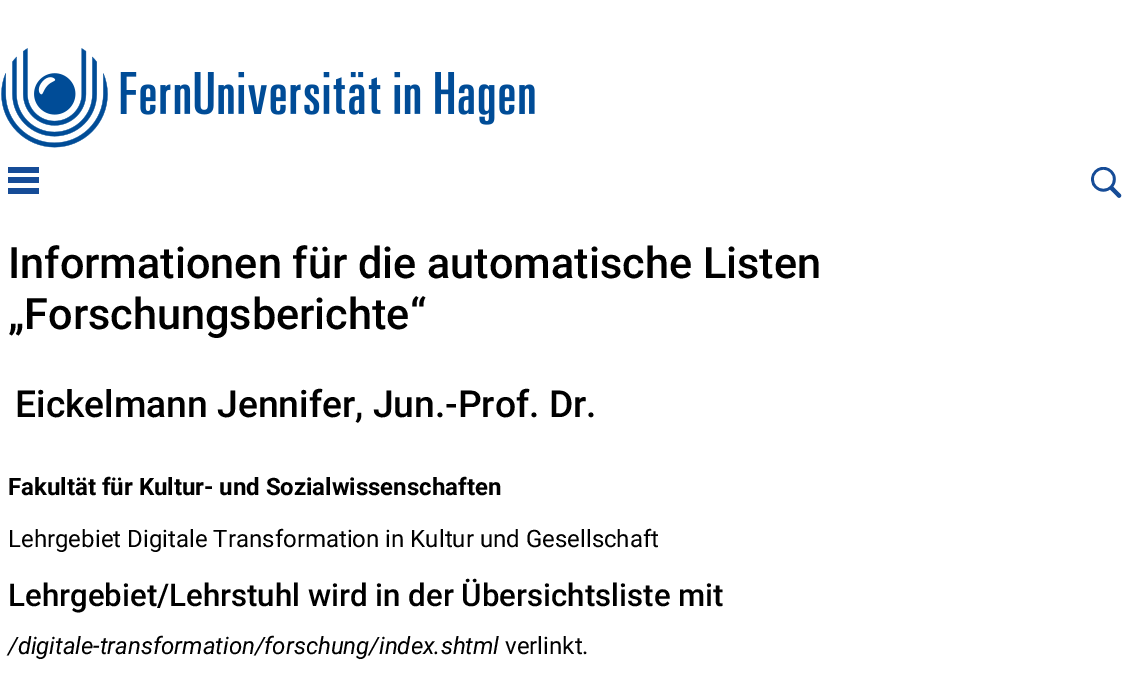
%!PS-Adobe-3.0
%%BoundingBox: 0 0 1129 692
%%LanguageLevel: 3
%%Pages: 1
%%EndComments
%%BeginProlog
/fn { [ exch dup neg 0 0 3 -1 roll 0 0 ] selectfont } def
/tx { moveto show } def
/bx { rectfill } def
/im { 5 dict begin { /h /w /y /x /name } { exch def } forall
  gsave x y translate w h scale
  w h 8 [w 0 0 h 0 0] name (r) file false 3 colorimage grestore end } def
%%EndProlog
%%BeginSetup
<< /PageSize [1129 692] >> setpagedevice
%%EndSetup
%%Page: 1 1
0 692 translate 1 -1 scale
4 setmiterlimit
1 setgray
0 0 1129 692 bx
(image0.raw) 1 48 534 100 im
0.086 0.298 0.592 setrgbcolor
8 167 31 6 bx
8 177 31 6 bx
8 188 31 6 bx
(image1.raw) 1091 167 31 31 im
/Roboto-Medium 43.25 fn
0 setgray
(Informationen für die automatische Listen) 8 278 tx
(„Forschungsberichte“) 8 329 tx
/Roboto-Medium 37.25 fn
(Eickelmann Jennifer, Jun.-Prof. Dr.) 15 417 tx
/Roboto-Bold 24 fn
(Fakultät für Kultur- und Sozialwissenschaften) 8 495 tx
/Roboto-Regular 24 fn
(Lehrgebiet Digitale Transformation in Kultur und Gesellschaft) 8 547 tx
/Roboto-Medium 31.2 fn
(Lehrgebiet/Lehrstuhl wird in der Übersichtsliste mit) 8 606 tx
/Roboto-Italic 24 fn
(/digitale-transformation/forschung/index.shtml) 8 654 tx
/Roboto-Regular 24 fn
(verlinkt.) 505 654 tx
showpage
%%EOF
